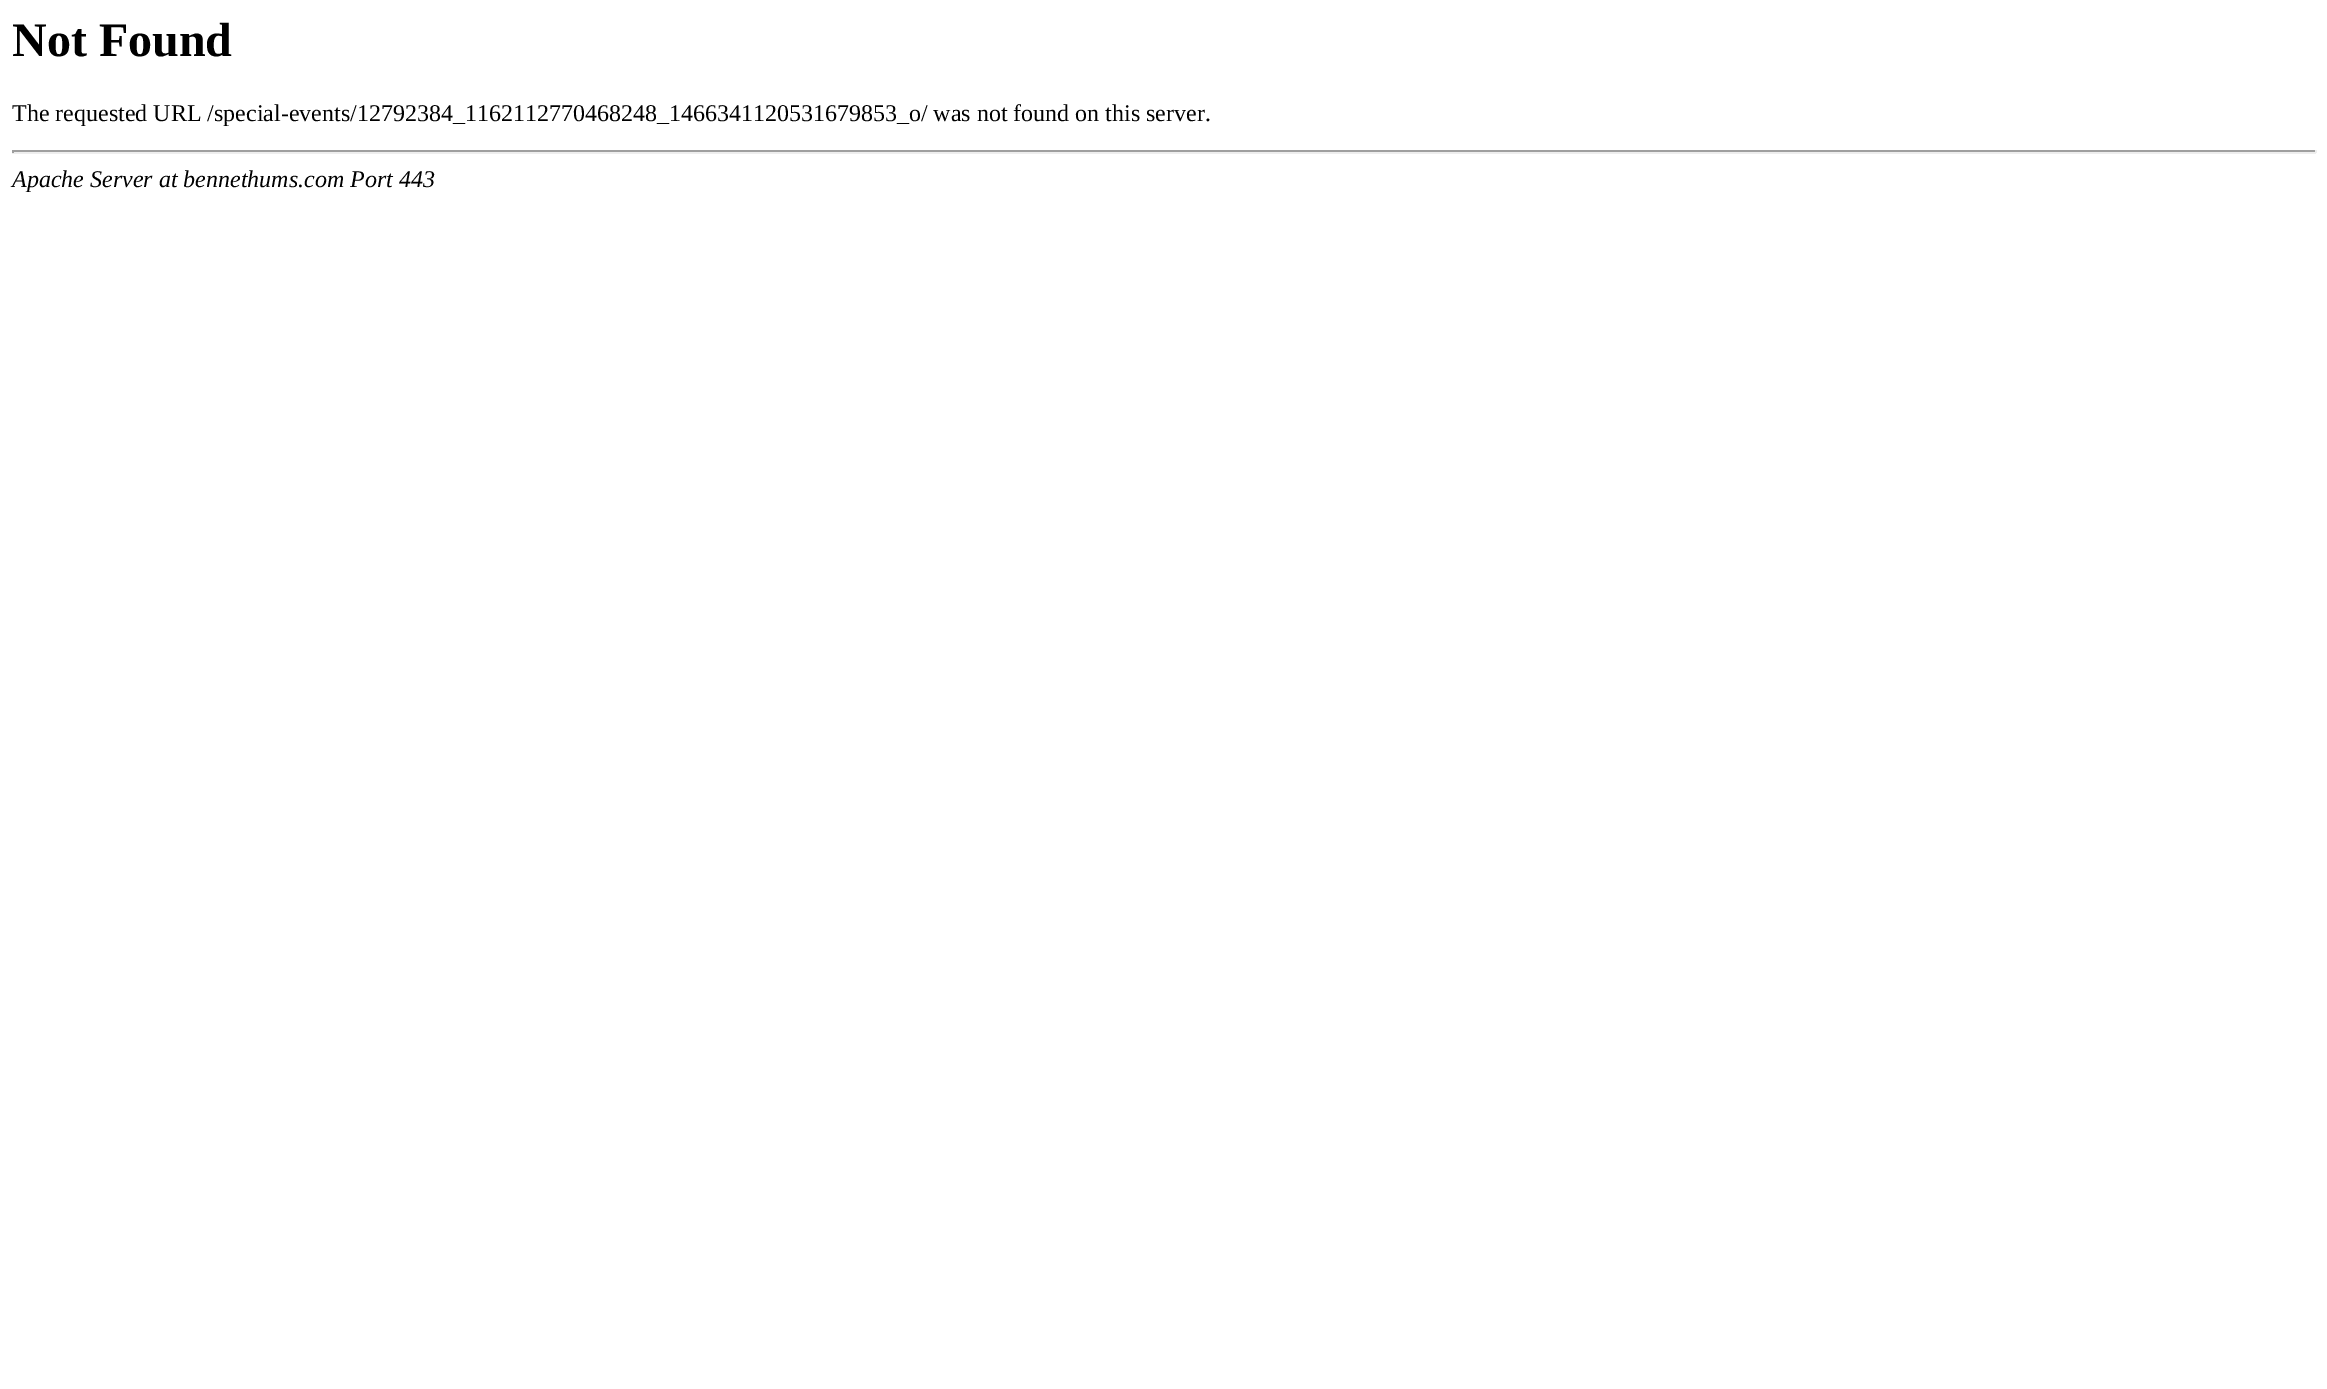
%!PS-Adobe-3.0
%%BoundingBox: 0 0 2327 1389
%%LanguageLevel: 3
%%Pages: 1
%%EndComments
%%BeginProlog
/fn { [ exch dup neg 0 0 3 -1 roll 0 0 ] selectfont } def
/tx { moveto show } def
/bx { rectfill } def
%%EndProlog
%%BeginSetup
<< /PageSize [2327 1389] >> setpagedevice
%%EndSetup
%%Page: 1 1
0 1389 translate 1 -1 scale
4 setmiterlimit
1 setgray
0 0 2327 1389 bx
/LiberationSerif-Bold 48 fn
0 setgray
(Not Found) 12 56 tx
/LiberationSerif-Regular 24 fn
(The requested URL /special-events/12792384_1162112770468248_1466341120531679853_o/ was not found on this server.) 12 121 tx
0.624 setgray
12 150 2304 2 bx
0.933 setgray
2315 150 2 3 bx
12 152 2304 2 bx
0.624 setgray
12 150 2 3 bx
/LiberationSerif-Italic 24 fn
0 setgray
(Apache Server at bennethums.com Port 443) 12 187 tx
showpage
%%EOF
